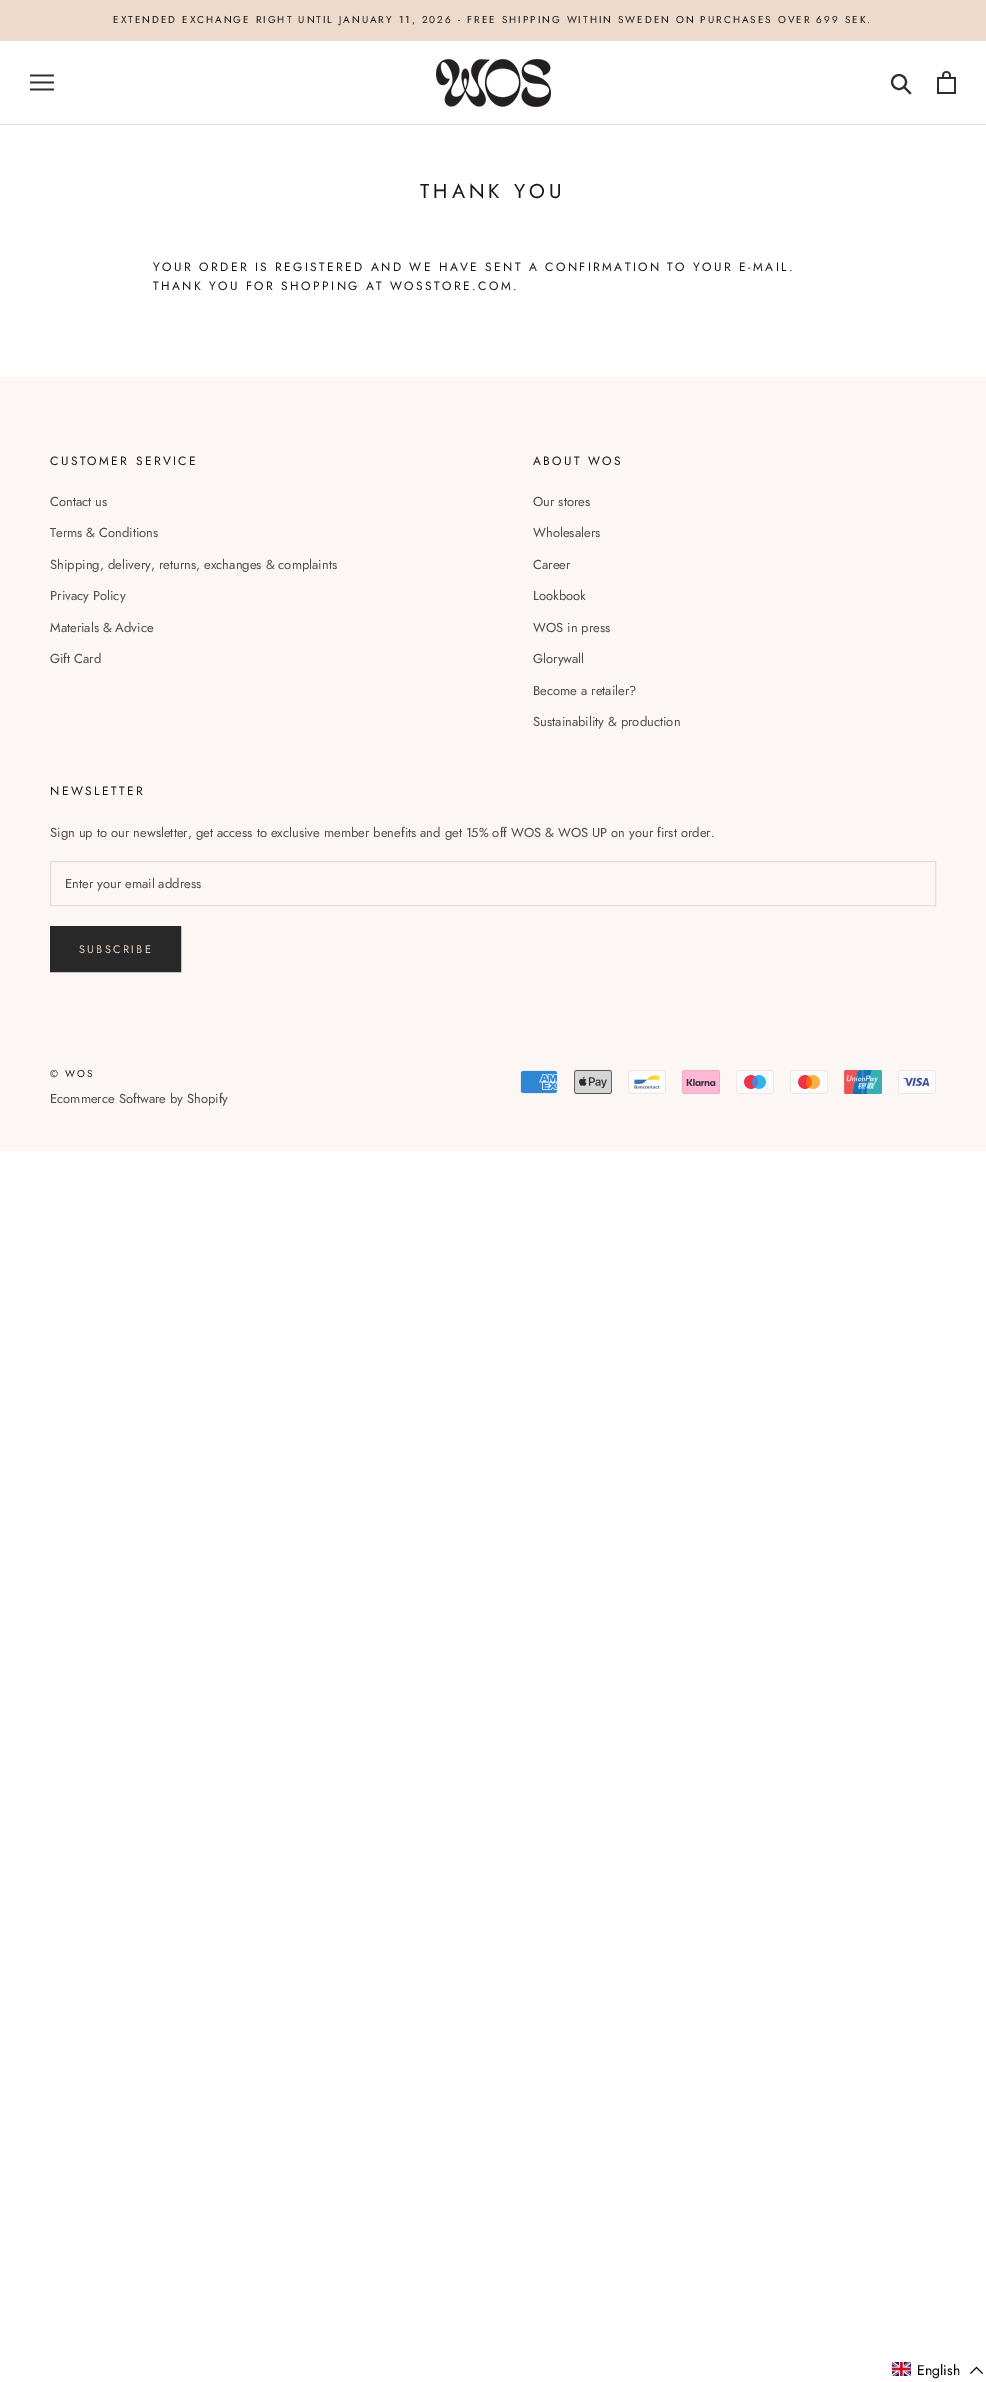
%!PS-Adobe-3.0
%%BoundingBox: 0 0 986 2382
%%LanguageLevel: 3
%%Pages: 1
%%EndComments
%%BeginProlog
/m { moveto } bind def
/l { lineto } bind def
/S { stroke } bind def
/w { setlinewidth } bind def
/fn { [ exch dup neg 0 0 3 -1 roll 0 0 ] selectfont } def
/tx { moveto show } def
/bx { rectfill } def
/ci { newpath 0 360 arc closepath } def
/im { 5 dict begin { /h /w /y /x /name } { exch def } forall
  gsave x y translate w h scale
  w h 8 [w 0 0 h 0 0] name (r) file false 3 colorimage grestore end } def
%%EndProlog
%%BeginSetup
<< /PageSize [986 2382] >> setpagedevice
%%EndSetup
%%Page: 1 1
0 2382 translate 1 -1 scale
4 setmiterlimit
1 setgray
0 0 986 2382 bx
0.929 0.855 0.796 setrgbcolor
0 0 986 41 bx
/Jost-Regular 10 fn
0.09 setgray
113 23 m 2 0 (EXTENDED EXCHANGE RIGHT UNTIL JANUARY 11, 2026 - FREE SHIPPING WITHIN SWEDEN ON PURCHASES OVER 699 SEK.) ashow
0.878 setgray
0 124 986 1 bx
(image0.raw) 30 74 24 17 im
(image1.raw) 436 59 115 48 im
0.18 setgray
2 w
2 setlinecap
910 93 m 904.5 87.5 l S
0 setlinecap
899 82 7 ci S
(image2.raw) 937 71 19 23 im
/Jost-Regular 20 fn
0.09 setgray
420 198 m 4 0 (THANK YOU) ashow
/Jost-Regular 12 fn
153 271 m 2.4 0 (YOUR ORDER IS REGISTERED AND WE HAVE SENT A CONFIRMATION TO YOUR E-MAIL.) ashow
153 290 m 2.4 0 (THANK YOU FOR SHOPPING AT WOSSTORE.COM.) ashow
0.988 0.969 0.957 setrgbcolor
0 377 986 774 bx
0.09 setgray
50 465 m 2.4 0 (CUSTOMER SERVICE) ashow
/Jost-Regular 13 fn
0.298 setgray
(Contact us) 50 506 tx
(Terms & Conditions) 50 537 tx
(Shipping, delivery, returns, exchanges & complaints) 50 569 tx
(Privacy Policy) 50 600 tx
(Materials & Advice) 50 632 tx
(Gift Card) 50 663 tx
/Jost-Regular 12 fn
0.09 setgray
533 465 m 2.4 0 (ABOUT WOS) ashow
/Jost-Regular 13 fn
0.298 setgray
(Our stores) 533 506 tx
(Wholesalers) 533 537 tx
(Career) 533 569 tx
(Lookbook) 533 600 tx
(WOS in press) 533 632 tx
(Glorywall) 533 663 tx
(Become a retailer?) 533 695 tx
(Sustainability & production) 533 726 tx
/Jost-Regular 12 fn
0.09 setgray
50 795 m 2.4 0 (NEWSLETTER) ashow
/Jost-Regular 13 fn
0.298 setgray
(Sign up to our newsletter, get access to exclusive member benefits and get 15% off WOS & WOS UP on your first order.) 50 837 tx
0.878 setgray
1 w
50.5 861.5 885 44 rectstroke
0.298 setgray
(Enter your email address) 65 888 tx
0.157 setgray
50.5 926.5 130 45 rectstroke
51 927 129 44 bx
/Jost-Regular 11 fn
0.929 0.855 0.796 setrgbcolor
79 953 m 2.25 0 (SUBSCRIBE) ashow
/Jost-Regular 10 fn
0.09 setgray
50 1077 m 2 0 (© WOS) ashow
/Jost-Regular 13 fn
0.298 setgray
(Ecommerce Software by Shopify) 50 1103 tx
(image3.raw) 520 1070 38 24 im
(image4.raw) 574 1070 38 24 im
(image5.raw) 628 1070 38 24 im
(image6.raw) 682 1070 38 24 im
(image7.raw) 736 1070 38 24 im
(image8.raw) 790 1070 38 24 im
(image9.raw) 844 1070 38 24 im
(image10.raw) 898 1070 38 24 im
(image11.raw) 892 2362 19 14 im
/Jost-Regular 14 fn
0 setgray
(English) 917 2375 tx
982.5 2373.5 m 976.5 2367.5 l 970.5 2373.5 l S
showpage
%%EOF
